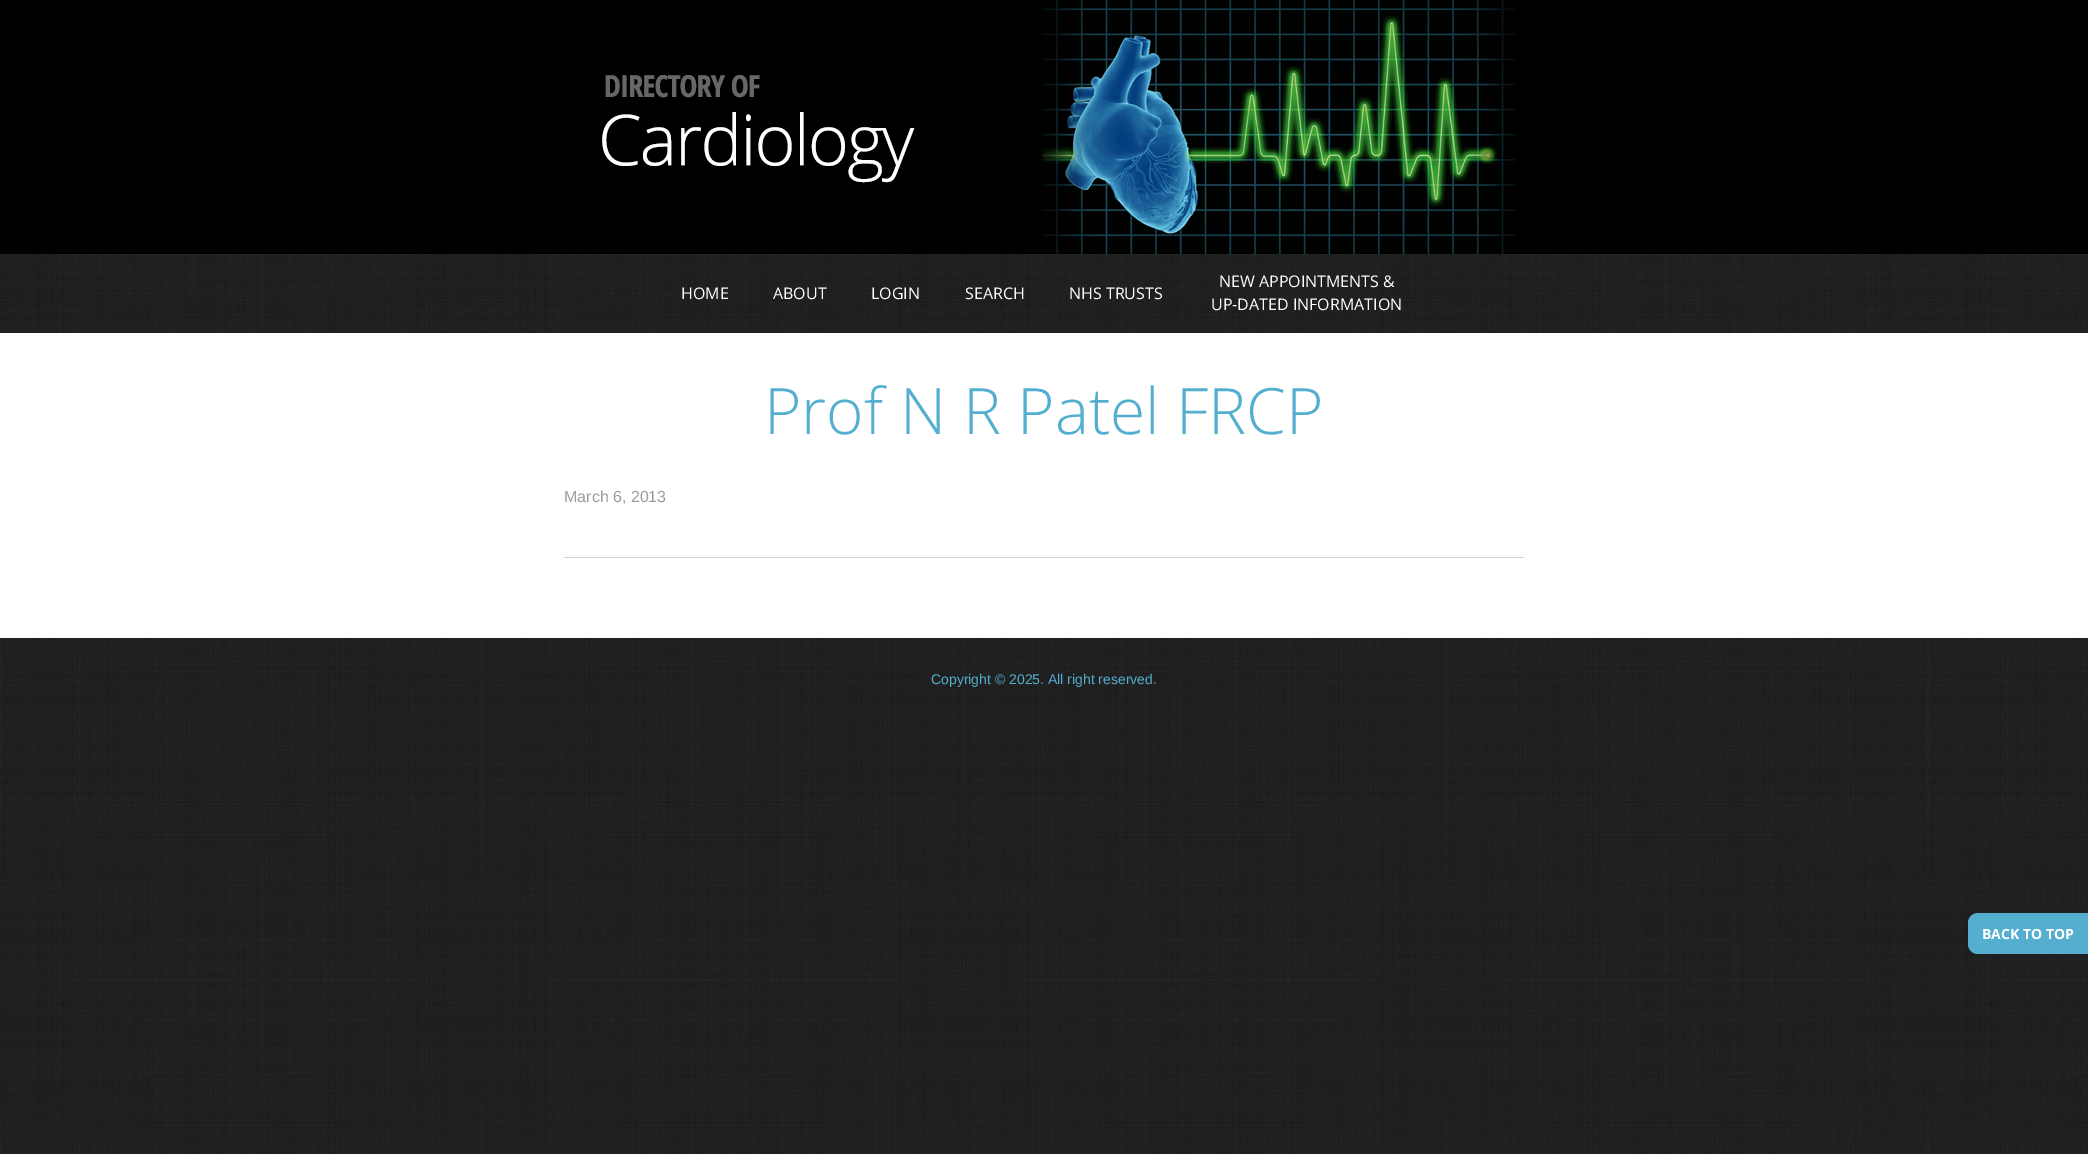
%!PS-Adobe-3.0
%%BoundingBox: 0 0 2088 1154
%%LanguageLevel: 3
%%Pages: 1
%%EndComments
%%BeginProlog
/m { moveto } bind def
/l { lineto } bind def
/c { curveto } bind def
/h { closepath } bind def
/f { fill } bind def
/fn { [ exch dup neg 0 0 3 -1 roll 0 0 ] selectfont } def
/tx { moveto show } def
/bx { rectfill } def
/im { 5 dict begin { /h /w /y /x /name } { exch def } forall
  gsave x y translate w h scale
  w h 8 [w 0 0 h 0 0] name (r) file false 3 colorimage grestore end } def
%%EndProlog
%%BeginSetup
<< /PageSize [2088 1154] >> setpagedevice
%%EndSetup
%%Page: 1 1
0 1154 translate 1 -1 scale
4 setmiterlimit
1 setgray
0 0 2088 1154 bx
(image0.raw) 0 638 2088 516 im
0 setgray
0 0 2088 254 bx
(image1.raw) 602 0 914 254 im
(image2.raw) 0 254 2088 79 im
/OpenSans-Regular 16 fn
1 setgray
(HOME) 681 299 tx
(ABOUT) 773 299 tx
(LOGIN) 871 299 tx
(SEARCH) 965 299 tx
(NHS TRUSTS) 1069 299 tx
(NEW APPOINTMENTS &) 1219 287 tx
(UP-DATED INFORMATION) 1211 310 tx
0.82 setgray
564 557 960 1 bx
/OpenSans-Light 64 fn
0.325 0.682 0.812 setrgbcolor
(Prof N R Patel FRCP) 764 434 tx
/LiberationSans-Regular 16 fn
0.616 setgray
(March 6, 2013) 564 502 tx
/LiberationSans-Regular 14 fn
0.325 0.682 0.812 setrgbcolor
(Copyright © 2025. All right reserved.) 931 684 tx
1978 913 m 2088 913 l 2088 954 l 1978 954 l 1972.5 954 1968 949.5 1968 944 c 1968 923 l 1968 917.5 1972.5 913 1978 913 c h f
/OpenSans-Bold 14 fn
1 setgray
(BACK TO TOP) 1982 939 tx
showpage
%%EOF
